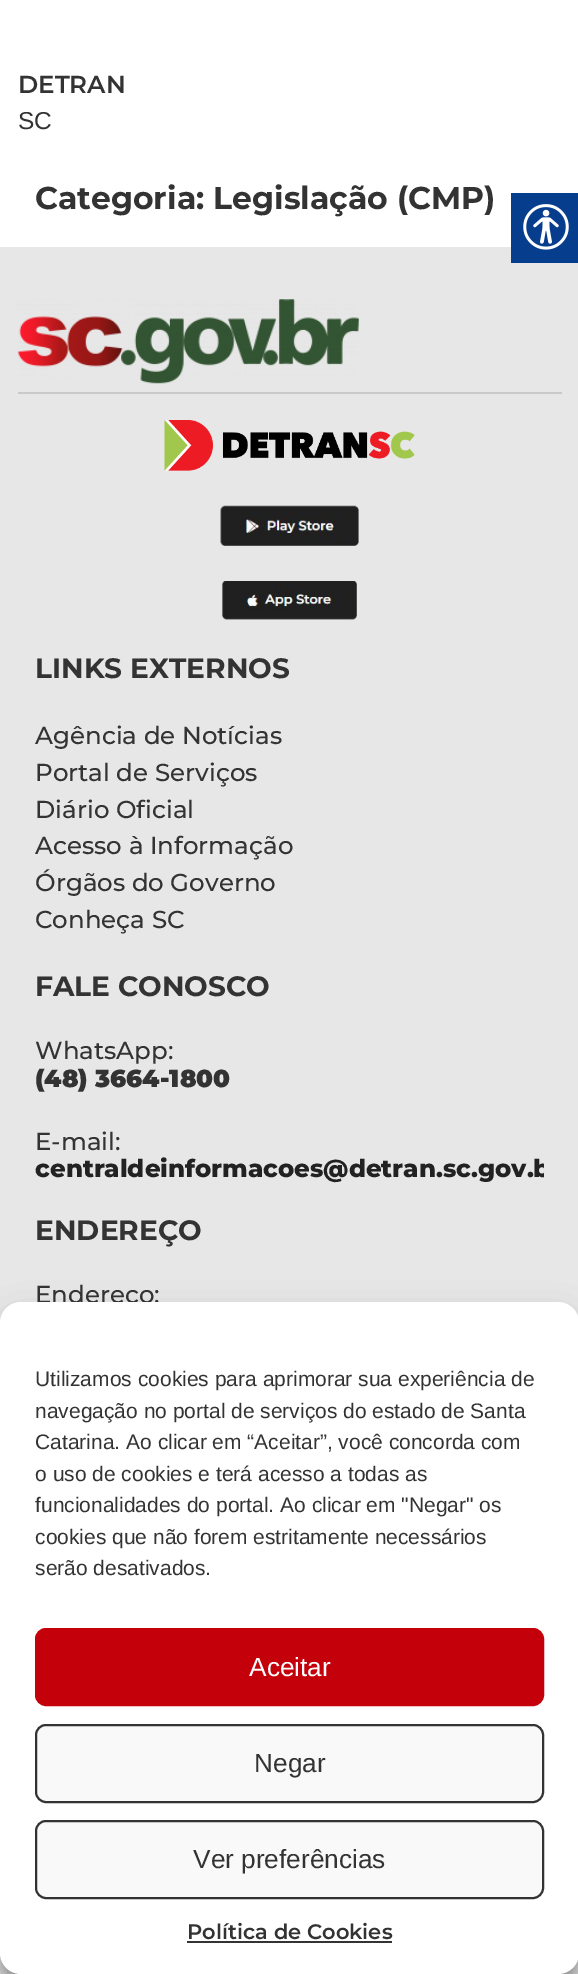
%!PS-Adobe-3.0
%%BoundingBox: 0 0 578 1974
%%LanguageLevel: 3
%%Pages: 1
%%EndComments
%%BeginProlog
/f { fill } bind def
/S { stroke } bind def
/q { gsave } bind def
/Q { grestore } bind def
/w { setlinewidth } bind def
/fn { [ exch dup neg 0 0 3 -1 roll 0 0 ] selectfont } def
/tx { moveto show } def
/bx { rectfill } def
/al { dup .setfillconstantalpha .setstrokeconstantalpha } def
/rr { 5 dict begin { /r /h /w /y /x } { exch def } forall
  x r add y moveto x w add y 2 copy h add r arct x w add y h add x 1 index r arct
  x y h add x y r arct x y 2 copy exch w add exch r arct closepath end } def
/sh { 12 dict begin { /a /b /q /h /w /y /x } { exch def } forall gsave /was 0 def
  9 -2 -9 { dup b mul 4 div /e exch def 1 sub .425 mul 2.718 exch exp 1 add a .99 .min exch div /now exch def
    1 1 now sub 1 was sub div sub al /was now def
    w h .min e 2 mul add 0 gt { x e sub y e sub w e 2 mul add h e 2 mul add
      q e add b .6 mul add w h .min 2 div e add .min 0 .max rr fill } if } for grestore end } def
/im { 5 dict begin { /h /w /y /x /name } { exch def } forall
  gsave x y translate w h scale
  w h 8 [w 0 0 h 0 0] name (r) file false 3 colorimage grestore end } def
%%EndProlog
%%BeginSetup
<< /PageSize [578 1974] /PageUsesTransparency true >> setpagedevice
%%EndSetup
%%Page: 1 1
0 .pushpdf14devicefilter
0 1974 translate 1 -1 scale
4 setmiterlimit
1 setgray
0 0 578 1974 bx
/Montserrat-SemiBold 24.5 fn
0.2 setgray
(DETRAN) 18 93 tx
/LiberationSans-Regular 24.5 fn
(SC) 18 129 tx
/Montserrat-Bold 31.5 fn
(Categoria: Legislação \(CMP\)) 35 209 tx
0.906 setgray
0 247 578 1727 bx
0.024 0.239 0.553 setrgbcolor
511 193 67 70 bx
(image0.raw) 523 204 46 46 im
(image1.raw) 17 299 342 85 im
0.788 setgray
18 392 544 2 bx
(image2.raw) 164 420 251 51 im
(image3.raw) 220 505 139 41 im
(image4.raw) 222 581 135 39 im
/Montserrat-Bold 28 fn
0.2 setgray
(LINKS EXTERNOS) 35 678 tx
/Montserrat-Medium 24.5 fn
(Agência de Notícias) 35 744 tx
(Portal de Serviços) 35 781 tx
(Diário Oficial) 35 818 tx
(Acesso à Informação) 35 854 tx
(Órgãos do Governo) 35 891 tx
(Conheça SC) 35 928 tx
/Montserrat-Bold 28 fn
(FALE CONOSCO) 35 996 tx
/Montserrat-Medium 24.5 fn
(WhatsApp:) 35 1059 tx
/Montserrat-Black 24.5 fn
(\(48\) 3664-1800) 35 1087 tx
/Montserrat-Medium 24.5 fn
(E-mail:) 35 1150 tx
q
35 1127 509 56 rectclip
/Montserrat-ExtraBold 24.5 fn
0.133 setgray
(centraldeinformacoes@detran.sc.gov.b) 35 1177 tx
Q
/Montserrat-Bold 28 fn
(ENDEREÇO) 35 1240 tx
/Montserrat-Medium 24.5 fn
(Endereço:) 35 1303 tx
0 setgray
0 1313 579 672 21 5 0.23 sh
0 1320 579 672 21 17.5 0.19 sh
1 setgray
0 1302 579 672 21 rr f
/LiberationSans-Regular 21 fn
0.2 setgray
(Utilizamos cookies para aprimorar sua experiência de) 35 1386 tx
(navegação no portal de serviços do estado de Santa) 35 1418 tx
(Catarina. Ao clicar em “Aceitar”, você concorda com) 35 1449 tx
(o uso de cookies e terá acesso a todas as) 35 1481 tx
(funcionalidades do portal. Ao clicar em "Negar" os) 35 1512 tx
(cookies que não forem estritamente necessários) 35 1544 tx
(serão desativados.) 35 1575 tx
0.769 0 0.043 setrgbcolor
36 1629 507 76 10 rr q f Q
2 w
S
/LiberationSans-Regular 26.25 fn
1 setgray
(Aceitar) 249 1676 tx
0.976 setgray
36 1725 507 77 10 rr q f Q
0.2 setgray
S
(Negar) 254 1772 tx
0.976 setgray
36 1821 507 77 10 rr q f Q
0.2 setgray
S
(Ver preferências) 193 1868 tx
/Montserrat-SemiBold 21 fn
(Política de Cookies) 187 1939 tx
187 1941 205 2 bx
.poppdf14devicefilter showpage
%%EOF
